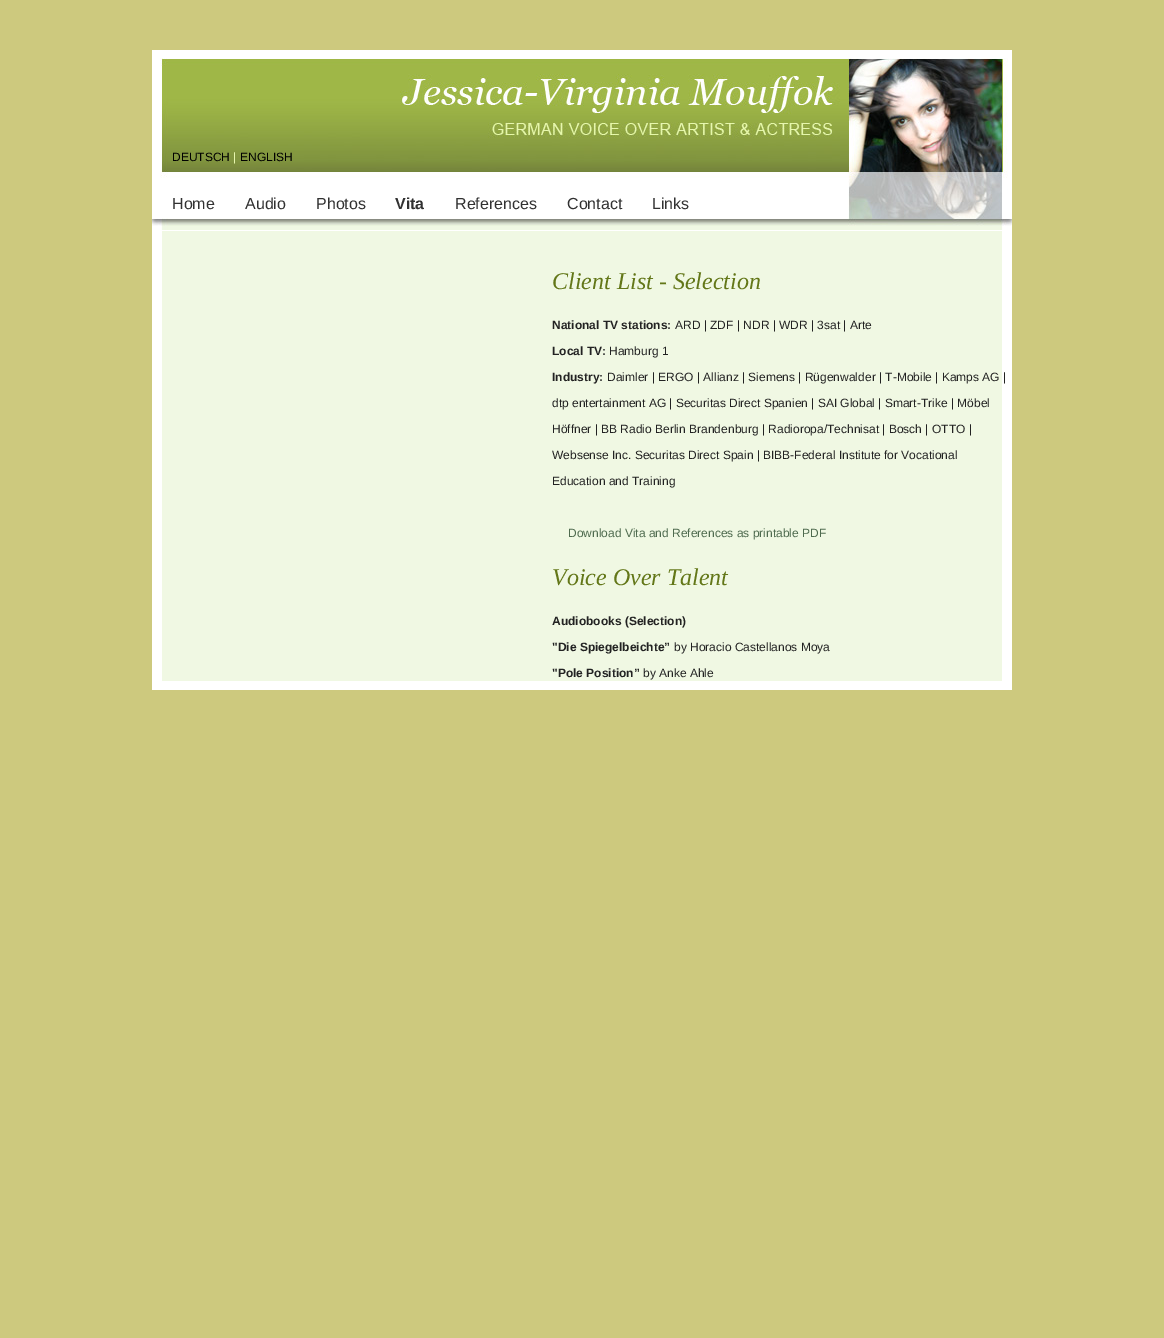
%!PS-Adobe-3.0
%%BoundingBox: 0 0 1164 1338
%%LanguageLevel: 3
%%Pages: 1
%%EndComments
%%BeginProlog
/fn { [ exch dup neg 0 0 3 -1 roll 0 0 ] selectfont } def
/tx { moveto show } def
/bx { rectfill } def
/im { 5 dict begin { /h /w /y /x /name } { exch def } forall
  gsave x y translate w h scale
  w h 8 [w 0 0 h 0 0] name (r) file false 3 colorimage grestore end } def
%%EndProlog
%%BeginSetup
<< /PageSize [1164 1338] >> setpagedevice
%%EndSetup
%%Page: 1 1
0 1338 translate 1 -1 scale
4 setmiterlimit
0.804 0.788 0.494 setrgbcolor
0 0 1164 1338 bx
1 setgray
152 50 860 640 bx
(image0.raw) 152 58 860 172 im
/LiberationSans-Regular 12 fn
0 setgray
(DEUTSCH) 172 161 tx
0.906 0.965 0.682 setrgbcolor
(|) 233 161 tx
0 setgray
(ENGLISH) 240 161 tx
/LiberationSans-Regular 16 fn
0.192 setgray
(Home) 172 209 tx
(Audio) 245 209 tx
(Photos) 316 209 tx
/LiberationSans-Bold 16 fn
(Vita) 395 209 tx
/LiberationSans-Regular 16 fn
(References) 455 209 tx
(Contact) 567 209 tx
(Links) 652 209 tx
0.941 0.973 0.89 setrgbcolor
162 231 840 450 bx
/LiberationSerif-Italic 24 fn
0.388 0.467 0.094 setrgbcolor
(Client List - Selection) 552 289 tx
/LiberationSans-Bold 12 fn
0.133 setgray
(National TV stations:) 552 329 tx
/LiberationSans-Regular 12 fn
(ARD | ZDF | NDR | WDR | 3sat | Arte) 675 329 tx
/LiberationSans-Bold 12 fn
(Local TV:) 552 355 tx
/LiberationSans-Regular 12 fn
(Hamburg 1) 609 355 tx
/LiberationSans-Bold 12 fn
(Industry:) 552 381 tx
/LiberationSans-Regular 12 fn
(Daimler | ERGO | Allianz | Siemens | Rügenwalder | T-Mobile | Kamps AG |) 607 381 tx
(dtp entertainment AG | Securitas Direct Spanien | SAI Global | Smart-Trike | Möbel) 552 407 tx
(Höffner | BB Radio Berlin Brandenburg | Radioropa/Technisat | Bosch | OTTO |) 552 433 tx
(Websense Inc. Securitas Direct Spain | BIBB-Federal Institute for Vocational) 552 459 tx
(Education and Training) 552 485 tx
0.31 0.42 0.31 setrgbcolor
(Download Vita and References as printable PDF) 568 537 tx
/LiberationSerif-Italic 24 fn
0.388 0.467 0.094 setrgbcolor
(Voice Over Talent) 552 585 tx
/LiberationSans-Bold 12 fn
0.133 setgray
(Audiobooks \(Selection\)) 552 625 tx
("Die Spiegelbeichte”) 552 651 tx
/LiberationSans-Regular 12 fn
(by Horacio Castellanos Moya) 674 651 tx
/LiberationSans-Bold 12 fn
("Pole Position”) 552 677 tx
/LiberationSans-Regular 12 fn
(by Anke Ahle) 643 677 tx
showpage
%%EOF
